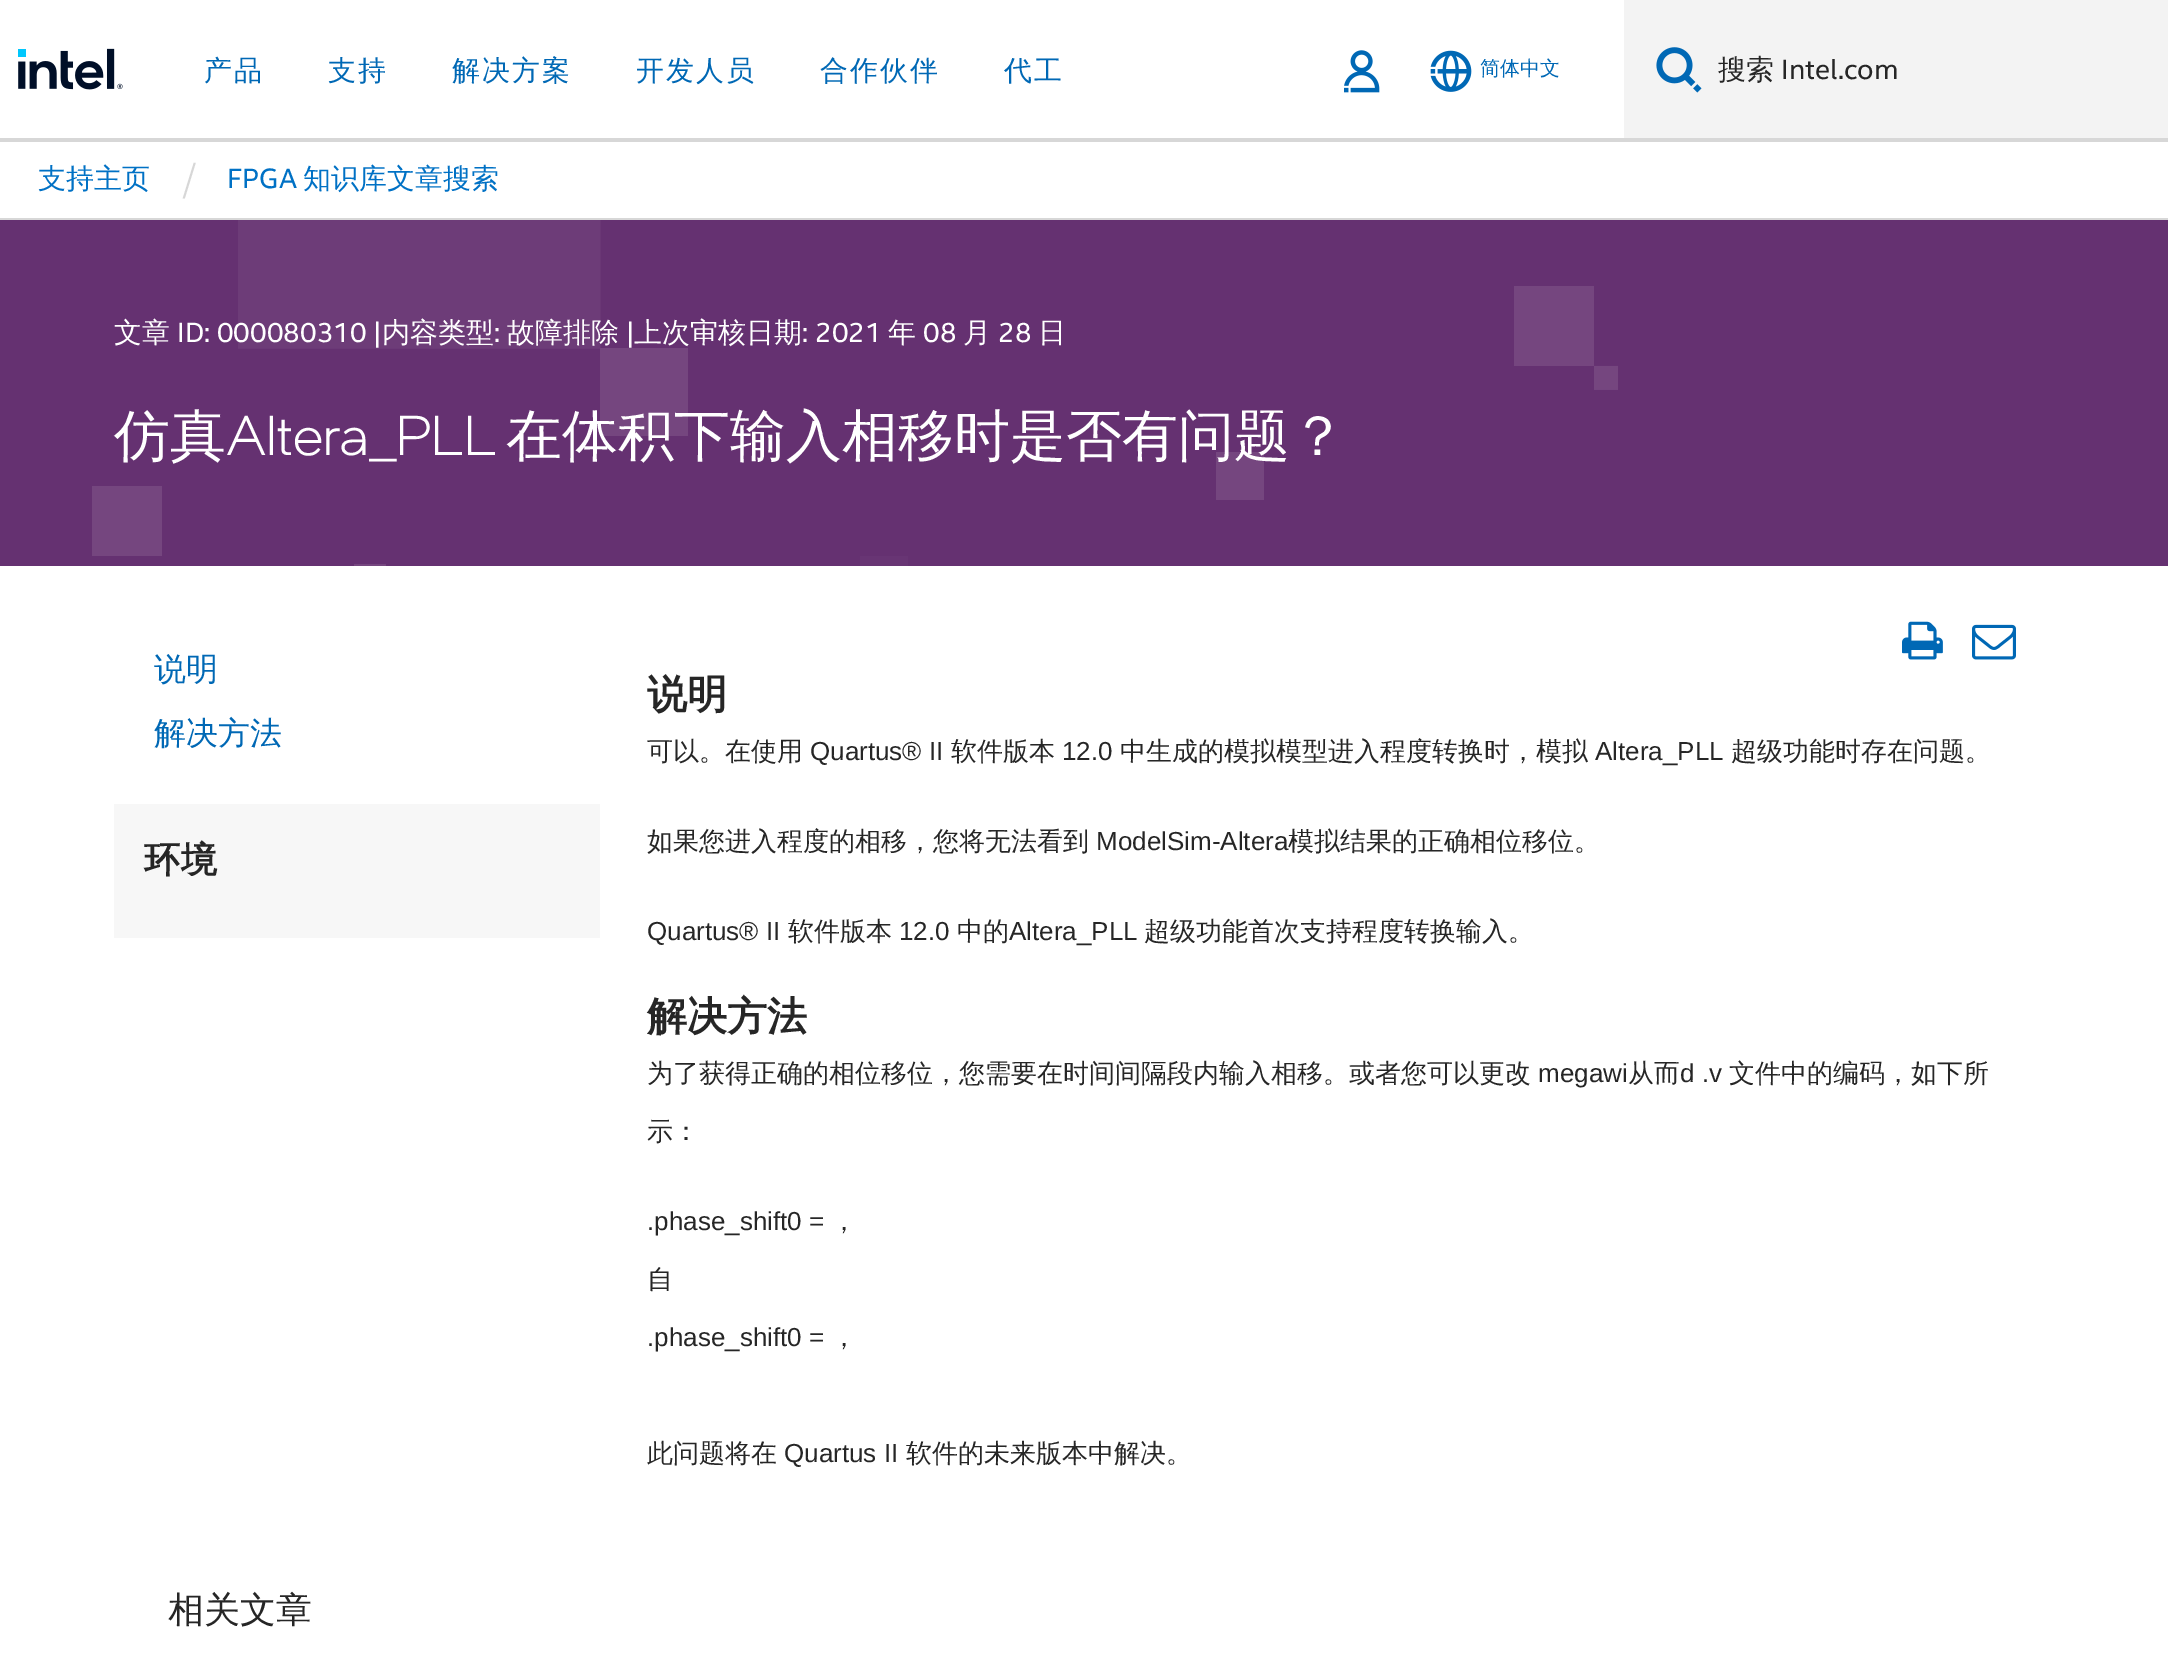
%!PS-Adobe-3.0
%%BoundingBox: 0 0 2168 1660
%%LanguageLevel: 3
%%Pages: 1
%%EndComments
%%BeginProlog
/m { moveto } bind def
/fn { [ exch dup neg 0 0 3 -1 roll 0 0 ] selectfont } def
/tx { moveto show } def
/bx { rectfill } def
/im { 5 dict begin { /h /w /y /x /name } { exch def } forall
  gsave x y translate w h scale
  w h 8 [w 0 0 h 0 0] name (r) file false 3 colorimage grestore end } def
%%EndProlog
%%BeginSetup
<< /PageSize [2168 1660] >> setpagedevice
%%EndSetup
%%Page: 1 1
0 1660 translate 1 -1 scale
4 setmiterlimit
1 setgray
0 0 2168 1660 bx
0.843 setgray
0 138 2168 2 bx
(image0.raw) 18 48 105 42 im
/WenQuanYiZenHei-Medium 28 fn
0 0.408 0.71 setrgbcolor
204 80 m 2 0 (产品) ashow
328 80 m 2 0 (支持) ashow
452 80 m 2 0 (解决方案) ashow
636 80 m 2 0 (开发人员) ashow
820 80 m 2 0 (合作伙伴) ashow
1004 80 m 2 0 (代工) ashow
(image1.raw) 1344 50 36 43 im
(image2.raw) 1430 50 42 42 im
/WenQuanYiZenHei-Medium 20 fn
(简体中文) 1480 75 tx
0.953 setgray
1624 0 544 138 bx
(image3.raw) 1656 47 46 46 im
/WenQuanYiZenHei-Medium 28 fn
0.149 setgray
(搜索) 1718 79 tx
/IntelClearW-Regular 28 fn
(Intel.com) 1781 79 tx
0.843 setgray
0 140 2168 2 bx
0 218 2168 2 bx
/WenQuanYiZenHei-Medium 28 fn
0 0.443 0.773 setrgbcolor
(支持主页) 38 188 tx
/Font-Light 40 fn
0.843 setgray
(/) 182 192 tx
/IntelClearW-Regular 28 fn
0 0.443 0.773 setrgbcolor
(FPGA) 227 188 tx
/WenQuanYiZenHei-Medium 28 fn
(知识库文章搜索) 303 188 tx
0.396 0.192 0.443 setrgbcolor
0 220 2168 346 bx
(image4.raw) 92 220 1526 346 im
1 setgray
(文章) 114 342 tx
/IntelClearW-Regular 28 fn
(ID: 000080310 |) 177 342 tx
/WenQuanYiZenHei-Medium 28 fn
(内容类型) 382 342 tx
/IntelClearW-Regular 28 fn
(:) 494 342 tx
/WenQuanYiZenHei-Medium 28 fn
(故障排除) 507 342 tx
/IntelClearW-Regular 28 fn
(|) 626 342 tx
/WenQuanYiZenHei-Medium 28 fn
(上次审核日期) 634 342 tx
/IntelClearW-Regular 28 fn
(: 2021) 802 342 tx
/WenQuanYiZenHei-Medium 28 fn
(年) 888 342 tx
/IntelClearW-Regular 28 fn
(08) 923 342 tx
/WenQuanYiZenHei-Medium 28 fn
(月) 963 342 tx
/IntelClearW-Regular 28 fn
(28) 998 342 tx
/WenQuanYiZenHei-Medium 28 fn
(日) 1038 342 tx
/WenQuanYiZenHei-Medium 56 fn
(仿真) 114 455 tx
/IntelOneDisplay-Light 56 fn
(Altera_PLL) 226 455 tx
/WenQuanYiZenHei-Medium 56 fn
(在体积下输入相移时是否有问题？) 506 455 tx
/WenQuanYiZenHei-Medium 32 fn
0 0.408 0.71 setrgbcolor
(说明) 154 680 tx
(解决方法) 154 744 tx
0.969 setgray
114 804 486 134 bx
/WenQuanYiZenHei-Bold 36 fn
0.149 setgray
144 872 m 1 0 (环境) ashow
(image5.raw) 1902 621 41 39 im
(image6.raw) 1972 624 44 36 im
/WenQuanYiZenHei-Bold 40 fn
(说明) 647 708 tx
/WenQuanYiZenHei-Medium 26 fn
(可以。在使用) 647 760 tx
/LiberationSans-Regular 26 fn
(Quartus® II) 810 760 tx
/WenQuanYiZenHei-Medium 26 fn
(软件版本) 951 760 tx
/LiberationSans-Regular 26 fn
(12.0) 1062 760 tx
/WenQuanYiZenHei-Medium 26 fn
(中生成的模拟模型进入程度转换时，模拟) 1120 760 tx
/LiberationSans-Regular 26 fn
(Altera_PLL) 1595 760 tx
/WenQuanYiZenHei-Medium 26 fn
(超级功能时存在问题。) 1731 760 tx
(如果您进入程度的相移，您将无法看到) 647 850 tx
/LiberationSans-Regular 26 fn
(ModelSim-Altera) 1096 850 tx
/WenQuanYiZenHei-Medium 26 fn
(模拟结果的正确相位移位。) 1288 850 tx
/LiberationSans-Regular 26 fn
(Quartus® II) 647 940 tx
/WenQuanYiZenHei-Medium 26 fn
(软件版本) 788 940 tx
/LiberationSans-Regular 26 fn
(12.0) 899 940 tx
/WenQuanYiZenHei-Medium 26 fn
(中的) 957 940 tx
/LiberationSans-Regular 26 fn
(Altera_PLL) 1009 940 tx
/WenQuanYiZenHei-Medium 26 fn
(超级功能首次支持程度转换输入。) 1144 940 tx
/WenQuanYiZenHei-Bold 40 fn
(解决方法) 647 1030 tx
/WenQuanYiZenHei-Medium 26 fn
(为了获得正确的相位移位，您需要在时间间隔段内输入相移。或者您可以更改) 647 1082 tx
/LiberationSans-Regular 26 fn
(megawi) 1538 1082 tx
/WenQuanYiZenHei-Medium 26 fn
(从而) 1628 1082 tx
/LiberationSans-Regular 26 fn
(d .v) 1680 1082 tx
/WenQuanYiZenHei-Medium 26 fn
(文件中的编码，如下所) 1729 1082 tx
(示：) 647 1140 tx
/LiberationSans-Regular 26 fn
(.phase_shift0 =) 647 1230 tx
/WenQuanYiZenHei-Medium 26 fn
(，) 831 1230 tx
(自) 647 1288 tx
/LiberationSans-Regular 26 fn
(.phase_shift0 =) 647 1346 tx
/WenQuanYiZenHei-Medium 26 fn
(，) 831 1346 tx
(此问题将在) 647 1462 tx
/LiberationSans-Regular 26 fn
(Quartus II) 784 1462 tx
/WenQuanYiZenHei-Medium 26 fn
(软件的未来版本中解决。) 906 1462 tx
/WenQuanYiZenHei-Medium 36 fn
(相关文章) 168 1622 tx
showpage
%%EOF
